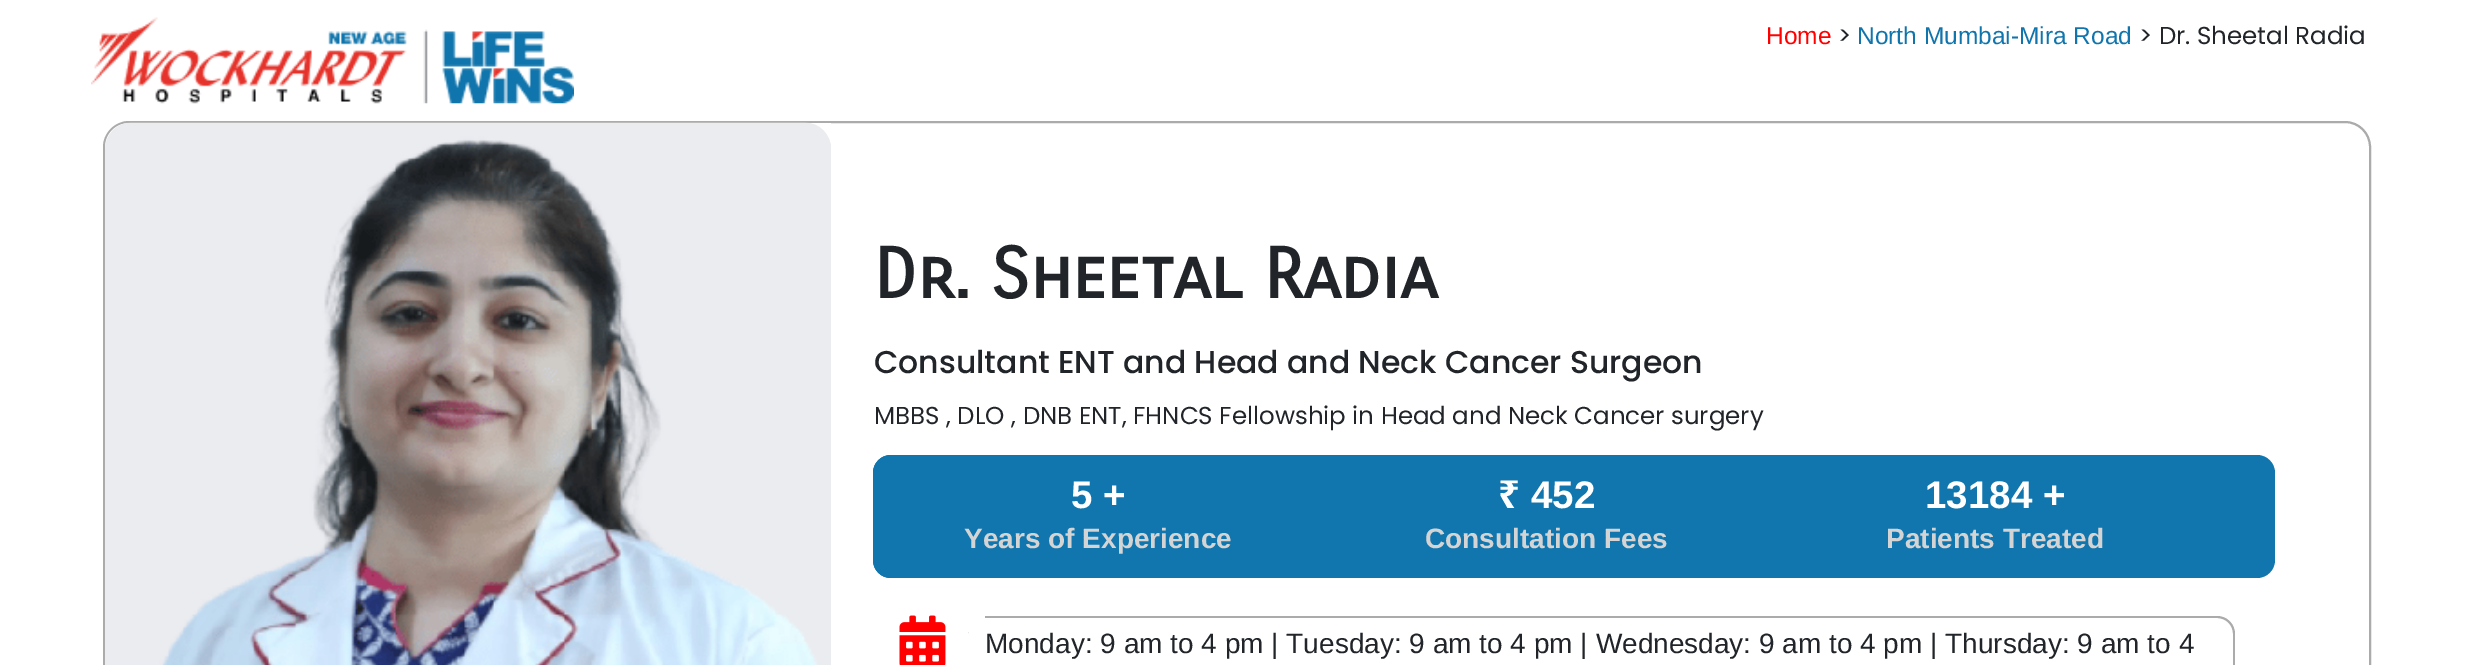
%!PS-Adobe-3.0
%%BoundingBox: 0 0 2473 665
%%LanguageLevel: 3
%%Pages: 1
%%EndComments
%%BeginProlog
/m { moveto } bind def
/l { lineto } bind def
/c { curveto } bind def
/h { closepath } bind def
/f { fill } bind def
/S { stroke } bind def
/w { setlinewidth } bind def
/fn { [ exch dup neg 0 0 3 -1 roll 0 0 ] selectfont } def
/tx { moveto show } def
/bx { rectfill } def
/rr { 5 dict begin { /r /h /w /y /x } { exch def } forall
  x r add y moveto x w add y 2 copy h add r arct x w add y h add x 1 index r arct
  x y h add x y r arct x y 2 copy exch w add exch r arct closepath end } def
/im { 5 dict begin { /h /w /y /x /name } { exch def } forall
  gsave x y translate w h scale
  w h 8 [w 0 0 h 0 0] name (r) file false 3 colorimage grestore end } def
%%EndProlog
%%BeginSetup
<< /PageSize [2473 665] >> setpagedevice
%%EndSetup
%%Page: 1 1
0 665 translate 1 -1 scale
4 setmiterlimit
1 setgray
0 0 2473 665 bx
(image0.raw) 91 17 483 87 im
/LiberationSans-Regular 24.5 fn
1 0 0 setrgbcolor
(Home) 1766 44 tx
/Poppins-Regular 24.5 fn
0.129 0.145 0.161 setrgbcolor
(>) 1838 44 tx
/LiberationSans-Regular 24.5 fn
0.063 0.459 0.675 setrgbcolor
(North Mumbai-Mira Road) 1857 44 tx
/Poppins-Regular 24.5 fn
0.129 0.145 0.161 setrgbcolor
(> Dr. Sheetal Radia) 2139 44 tx
0.671 setgray
2 w
104 122 2266 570 25 rr S
(image1.raw) 105 122 726 543 im
/CarroisGothicSC-Bold 70 fn
0.129 0.145 0.161 setrgbcolor
(Dr. Sheetal Radia) 874 298 tx
/Poppins-Medium 31.5 fn
(Consultant ENT and Head and Neck Cancer Surgeon) 874 373 tx
/Poppins-Regular 24.5 fn
(MBBS , DLO , DNB ENT, FHNCS Fellowship in Head and Neck Cancer surgery) 874 424 tx
0.063 0.463 0.678 setrgbcolor
873 455 1402 123 18 rr f
873 455 450 123 18 rr f
/LiberationSans-Bold 38.5 fn
1 setgray
(5 +) 1071 508 tx
/LiberationSans-Bold 28 fn
0.831 setgray
(Years of Experience) 964 548 tx
/NotoSans-Bold 38.5 fn
1 setgray
(₹) 1498 508 tx
/LiberationSans-Bold 38.5 fn
(452) 1531 508 tx
/LiberationSans-Bold 28 fn
0.831 setgray
(Consultation Fees) 1425 548 tx
/LiberationSans-Bold 38.5 fn
1 setgray
(13184 +) 1925 508 tx
/LiberationSans-Bold 28 fn
0.831 setgray
(Patients Treated) 1886 548 tx
(image2.raw) 899 615 47 50 im
0.671 setgray
985 616 m 2217 616 l 2227 616 2235 624 2235 634 c 2235 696 l 2235 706 2227 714 2217 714 c 985 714 l 976 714 968 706 968 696 c 968 634 l 968 624 976 616 985 616 c h 985 618 m 2217 618 l 2226 618 2233 625 2233 634 c 2233 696 l 2233 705 2226 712 2217 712 c 985 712 l 976 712 968 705 968 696 c 968 634 l 968 625 976 618 985 618 c h eofill
1 setgray
968 616 17 16 bx
/LiberationSans-Regular 28 fn
0.129 0.145 0.161 setrgbcolor
(Monday: 9 am to 4 pm | Tuesday: 9 am to 4 pm | Wednesday: 9 am to 4 pm | Thursday: 9 am to 4) 985 653 tx
showpage
%%EOF
